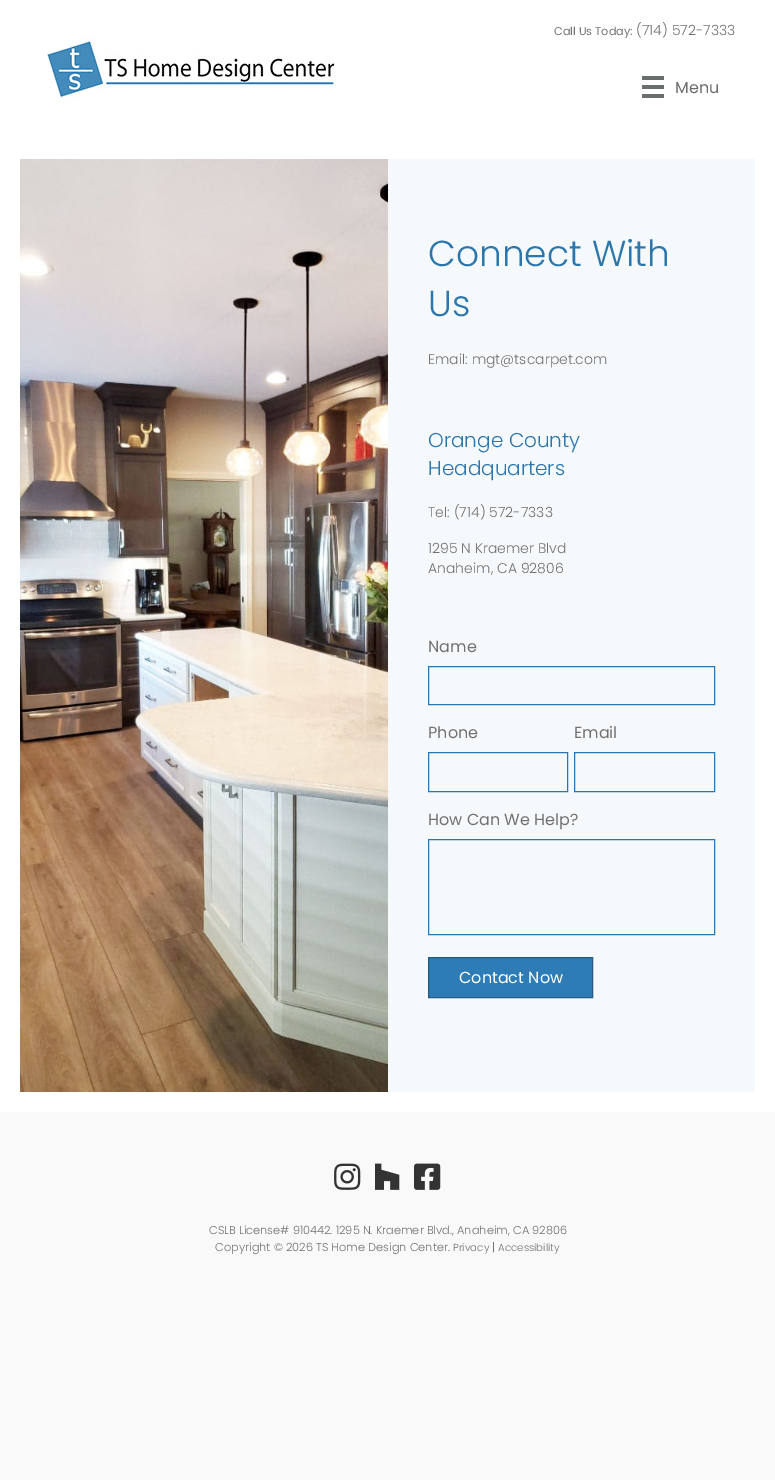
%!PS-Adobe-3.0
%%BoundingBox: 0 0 775 1480
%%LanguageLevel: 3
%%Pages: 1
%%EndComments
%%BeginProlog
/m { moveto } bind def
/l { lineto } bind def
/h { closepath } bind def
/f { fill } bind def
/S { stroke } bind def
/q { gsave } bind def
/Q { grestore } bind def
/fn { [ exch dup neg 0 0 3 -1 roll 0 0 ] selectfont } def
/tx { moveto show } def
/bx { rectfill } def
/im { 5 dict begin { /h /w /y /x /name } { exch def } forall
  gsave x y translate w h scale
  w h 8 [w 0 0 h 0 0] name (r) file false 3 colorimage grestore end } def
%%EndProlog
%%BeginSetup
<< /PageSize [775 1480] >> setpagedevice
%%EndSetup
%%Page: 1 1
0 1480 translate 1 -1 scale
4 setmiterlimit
0.976 setgray
0 0 775 1480 bx
1 setgray
0 0 775 1112 bx
(image0.raw) 47 36 289 64 im
/Poppins-Regular 11.25 fn
0.447 setgray
(Call Us Today:) 554 35 tx
/Poppins-Light 14 fn
(\(714\) 572-7333) 636 35 tx
0.416 0.431 0.427 setrgbcolor
642 76 22 4 bx
642 85 22 4 bx
642 94 22 4 bx
/Poppins-Regular 16 fn
(Menu) 675 93 tx
(image1.raw) 20 159 368 933 im
0.961 0.976 0.988 setrgbcolor
388 159 367 933 bx
/Poppins-Light 36 fn
0.169 0.467 0.678 setrgbcolor
(Connect With) 428 266 tx
(Us) 428 316 tx
/Poppins-Light 14 fn
0.447 setgray
(Email: mgt@tscarpet.com) 428 364 tx
/Poppins-Light 20 fn
0.169 0.467 0.678 setrgbcolor
(Orange County) 428 447 tx
(Headquarters) 428 475 tx
/Poppins-Light 14 fn
0.447 setgray
(Tel: \(714\) 572-7333) 428 517 tx
(1295 N Kraemer Blvd) 428 553 tx
(Anaheim, CA 92806) 428 573 tx
/Poppins-Regular 16 fn
(Name) 428 652 tx
0.169 0.467 0.678 setrgbcolor
428.5 666.5 286 38 rectstroke
0.447 setgray
(Phone) 428 738 tx
0.169 0.467 0.678 setrgbcolor
428.5 752.5 139 39 rectstroke
0.447 setgray
(Email) 574 738 tx
0.169 0.467 0.678 setrgbcolor
574.5 752.5 140 39 rectstroke
0.447 setgray
(How Can We Help?) 428 825 tx
0.169 0.467 0.678 setrgbcolor
428.5 839.5 286 95 rectstroke
0.176 0.486 0.71 setrgbcolor
428.5 957.5 m 592.5 957.5 l 592.5 997.5 l 428.5 997.5 l h q f Q
0.129 0.353 0.518 setrgbcolor
S
1 setgray
(Contact Now) 459 983 tx
(image2.raw) 334 1163 27 27 im
(image3.raw) 375 1163 25 27 im
(image4.raw) 414 1163 27 27 im
/Poppins-Light 11.35 fn
0.447 setgray
(CSLB License# 910442. 1295 N. Kraemer Blvd., Anaheim, CA 92806) 209 1234 tx
(Copyright © 2026 TS Home Design Center.) 215 1251 tx
/Poppins-Light 10.25 fn
(Privacy) 453 1251 tx
/Poppins-Light 11.35 fn
(|) 492 1251 tx
/Poppins-Light 10.25 fn
(Accessibility) 498 1251 tx
showpage
%%EOF
